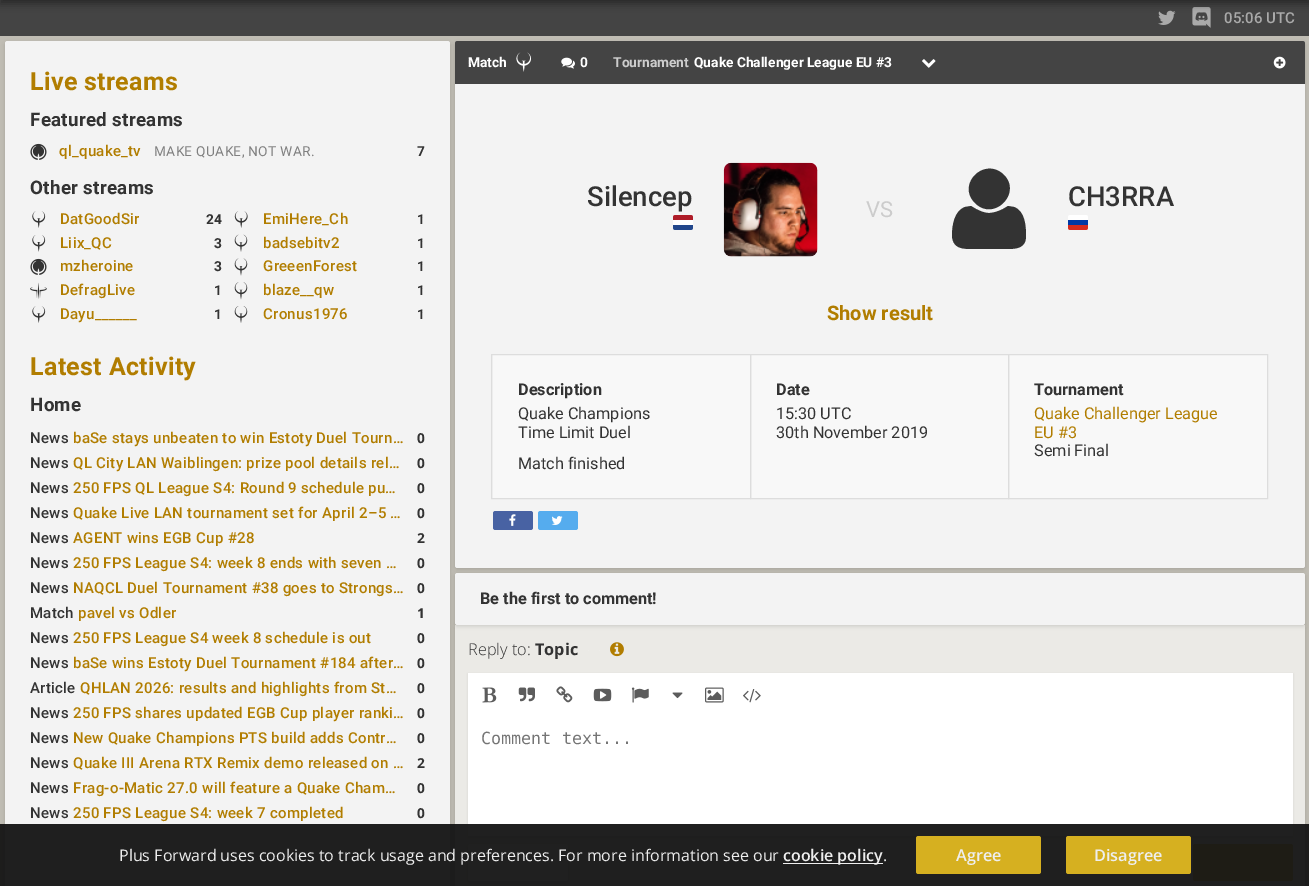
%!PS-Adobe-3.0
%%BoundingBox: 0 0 1309 886
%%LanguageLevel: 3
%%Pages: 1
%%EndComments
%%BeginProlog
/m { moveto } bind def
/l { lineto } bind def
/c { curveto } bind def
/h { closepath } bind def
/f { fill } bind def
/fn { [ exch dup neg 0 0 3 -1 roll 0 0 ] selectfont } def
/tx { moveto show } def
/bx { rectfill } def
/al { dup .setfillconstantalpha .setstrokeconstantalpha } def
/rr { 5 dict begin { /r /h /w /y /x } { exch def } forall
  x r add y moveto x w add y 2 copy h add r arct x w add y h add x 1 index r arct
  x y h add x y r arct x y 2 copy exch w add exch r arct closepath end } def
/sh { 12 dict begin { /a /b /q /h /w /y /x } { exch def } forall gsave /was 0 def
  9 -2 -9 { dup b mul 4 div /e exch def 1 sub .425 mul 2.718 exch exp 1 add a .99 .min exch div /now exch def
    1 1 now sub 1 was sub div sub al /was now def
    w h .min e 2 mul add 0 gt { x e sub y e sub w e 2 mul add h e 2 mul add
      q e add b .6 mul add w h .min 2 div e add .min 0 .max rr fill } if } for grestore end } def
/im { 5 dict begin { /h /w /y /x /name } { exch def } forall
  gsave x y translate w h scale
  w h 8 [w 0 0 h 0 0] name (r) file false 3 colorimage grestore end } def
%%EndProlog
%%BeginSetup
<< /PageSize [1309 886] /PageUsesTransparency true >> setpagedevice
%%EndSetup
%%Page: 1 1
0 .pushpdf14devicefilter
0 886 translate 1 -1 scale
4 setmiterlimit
0.753 0.741 0.706 setrgbcolor
0 0 1309 886 bx
0.267 setgray
0 0 1309 36 bx
(image0.raw) 1158 10 18 15 im
(image1.raw) 1192 7 19 21 im
0 setgray
0 -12 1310 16 0 4 0.4 sh
/Roboto-Medium 15 fn
0.667 setgray
(05:06 UTC) 1224 23 tx
0 setgray
455 43 850 526 2.5 2 0.15 sh
0.953 setgray
455 41 850 527 2.5 rr f
0.267 setgray
457.5 41 m 1302.5 41 l 1304 41 1305 42 1305 43.5 c 1305 84 l 455 84 l 455 43.5 l 455 42 456 41 457.5 41 c h f
0 setgray
5 43 445 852 2.5 2 0.15 sh
0.953 setgray
5 41 445 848 2.5 rr f
/Roboto-Bold 25 fn
0.694 0.49 0 setrgbcolor
30 90 m 0.3 0 (Live streams) ashow
/Roboto-Bold 18.75 fn
0.2 setgray
30 126 m 0.3 0 (Featured streams) ashow
(image2.raw) 30 143 17 17 im
/Roboto-Medium 15 fn
0.694 0.49 0 setrgbcolor
59 156 m 0.3 0 (ql_quake_tv) ashow
/Roboto-Regular 13.75 fn
0.502 setgray
154 156 m 0.3 0 (MAKE QUAKE, NOT WAR.) ashow
/Roboto-Bold 13.75 fn
0.2 setgray
417 156 m 0.3 0 (7) ashow
/Roboto-Bold 18.75 fn
30 194 m 0.3 0 (Other streams) ashow
(image3.raw) 32 211 14 17 im
/Roboto-Medium 15 fn
0.694 0.49 0 setrgbcolor
60 224 m 0.3 0 (DatGoodSir) ashow
/Roboto-Bold 13.75 fn
0.2 setgray
206 224 m 0.3 0 (24) ashow
(image4.raw) 32 235 14 17 im
/Roboto-Medium 15 fn
0.694 0.49 0 setrgbcolor
60 248 m 0.3 0 (Liix_QC) ashow
/Roboto-Bold 13.75 fn
0.2 setgray
214 248 m 0.3 0 (3) ashow
(image2.raw) 30 258 17 17 im
/Roboto-Medium 15 fn
0.694 0.49 0 setrgbcolor
60 271 m 0.3 0 (mzheroine) ashow
/Roboto-Bold 13.75 fn
0.2 setgray
214 271 m 0.3 0 (3) ashow
(image5.raw) 30 282 17 17 im
/Roboto-Medium 15 fn
0.694 0.49 0 setrgbcolor
60 295 m 0.3 0 (DefragLive) ashow
/Roboto-Bold 13.75 fn
0.2 setgray
214 295 m 0.3 0 (1) ashow
(image3.raw) 32 306 14 17 im
/Roboto-Medium 15 fn
0.694 0.49 0 setrgbcolor
60 319 m 0.3 0 (Dayu______) ashow
/Roboto-Bold 13.75 fn
0.2 setgray
214 319 m 0.3 0 (1) ashow
(image6.raw) 234 211 14 17 im
/Roboto-Medium 15 fn
0.694 0.49 0 setrgbcolor
263 224 m 0.3 0 (EmiHere_Ch) ashow
/Roboto-Bold 13.75 fn
0.2 setgray
417 224 m 0.3 0 (1) ashow
(image7.raw) 234 234 14 18 im
/Roboto-Medium 15 fn
0.694 0.49 0 setrgbcolor
263 248 m 0.3 0 (badsebitv2) ashow
/Roboto-Bold 13.75 fn
0.2 setgray
417 248 m 0.3 0 (1) ashow
(image8.raw) 234 258 14 18 im
/Roboto-Medium 15 fn
0.694 0.49 0 setrgbcolor
263 271 m 0.3 0 (GreeenForest) ashow
/Roboto-Bold 13.75 fn
0.2 setgray
417 271 m 0.3 0 (1) ashow
(image9.raw) 234 282 14 18 im
/Roboto-Medium 15 fn
0.694 0.49 0 setrgbcolor
263 295 m 0.3 0 (blaze__qw) ashow
/Roboto-Bold 13.75 fn
0.2 setgray
417 295 m 0.3 0 (1) ashow
(image10.raw) 234 306 14 17 im
/Roboto-Medium 15 fn
0.694 0.49 0 setrgbcolor
263 319 m 0.3 0 (Cronus1976) ashow
/Roboto-Bold 13.75 fn
0.2 setgray
417 319 m 0.3 0 (1) ashow
/Roboto-Bold 25 fn
0.694 0.49 0 setrgbcolor
30 375 m 0.3 0 (Latest Activity) ashow
/Roboto-Bold 18.75 fn
0.2 setgray
30 411 m 0.3 0 (Home) ashow
/Roboto-Medium 15 fn
30 443 m 0.3 0 (News) ashow
0.694 0.49 0 setrgbcolor
73 443 m 0.3 0 (baSe stays unbeaten to win Estoty Duel Tourn…) ashow
/OpenSans-Bold 13.75 fn
0.2 setgray
417 443 m 0.3 0 (0) ashow
/Roboto-Medium 15 fn
30 468 m 0.3 0 (News) ashow
0.694 0.49 0 setrgbcolor
73 468 m 0.3 0 (QL City LAN Waiblingen: prize pool details rel…) ashow
/OpenSans-Bold 13.75 fn
0.2 setgray
417 468 m 0.3 0 (0) ashow
/Roboto-Medium 15 fn
30 493 m 0.3 0 (News) ashow
0.694 0.49 0 setrgbcolor
73 493 m 0.3 0 (250 FPS QL League S4: Round 9 schedule pu…) ashow
/OpenSans-Bold 13.75 fn
0.2 setgray
417 493 m 0.3 0 (0) ashow
/Roboto-Medium 15 fn
30 518 m 0.3 0 (News) ashow
0.694 0.49 0 setrgbcolor
73 518 m 0.3 0 (Quake Live LAN tournament set for April 2–5 …) ashow
/OpenSans-Bold 13.75 fn
0.2 setgray
417 518 m 0.3 0 (0) ashow
/Roboto-Medium 15 fn
30 543 m 0.3 0 (News) ashow
0.694 0.49 0 setrgbcolor
73 543 m 0.3 0 (AGENT wins EGB Cup #28) ashow
/OpenSans-Bold 13.75 fn
0.2 setgray
417 543 m 0.3 0 (2) ashow
/Roboto-Medium 15 fn
30 568 m 0.3 0 (News) ashow
0.694 0.49 0 setrgbcolor
73 568 m 0.3 0 (250 FPS League S4: week 8 ends with seven …) ashow
/OpenSans-Bold 13.75 fn
0.2 setgray
417 568 m 0.3 0 (0) ashow
/Roboto-Medium 15 fn
30 593 m 0.3 0 (News) ashow
0.694 0.49 0 setrgbcolor
73 593 m 0.3 0 (NAQCL Duel Tournament #38 goes to Strongs…) ashow
/OpenSans-Bold 13.75 fn
0.2 setgray
417 593 m 0.3 0 (0) ashow
/Roboto-Medium 15 fn
30 618 m 0.3 0 (Match) ashow
0.694 0.49 0 setrgbcolor
78 618 m 0.3 0 (pavel vs Odler) ashow
/OpenSans-Bold 13.75 fn
0.2 setgray
417 618 m 0.3 0 (1) ashow
/Roboto-Medium 15 fn
30 643 m 0.3 0 (News) ashow
0.694 0.49 0 setrgbcolor
73 643 m 0.3 0 (250 FPS League S4 week 8 schedule is out) ashow
/OpenSans-Bold 13.75 fn
0.2 setgray
417 643 m 0.3 0 (0) ashow
/Roboto-Medium 15 fn
30 668 m 0.3 0 (News) ashow
0.694 0.49 0 setrgbcolor
73 668 m 0.3 0 (baSe wins Estoty Duel Tournament #184 after…) ashow
/OpenSans-Bold 13.75 fn
0.2 setgray
417 668 m 0.3 0 (0) ashow
/Roboto-Medium 15 fn
30 693 m 0.3 0 (Article) ashow
0.694 0.49 0 setrgbcolor
80 693 m 0.3 0 (QHLAN 2026: results and highlights from St…) ashow
/OpenSans-Bold 13.75 fn
0.2 setgray
417 693 m 0.3 0 (0) ashow
/Roboto-Medium 15 fn
30 718 m 0.3 0 (News) ashow
0.694 0.49 0 setrgbcolor
73 718 m 0.3 0 (250 FPS shares updated EGB Cup player ranki…) ashow
/OpenSans-Bold 13.75 fn
0.2 setgray
417 718 m 0.3 0 (0) ashow
/Roboto-Medium 15 fn
30 743 m 0.3 0 (News) ashow
0.694 0.49 0 setrgbcolor
73 743 m 0.3 0 (New Quake Champions PTS build adds Contr…) ashow
/OpenSans-Bold 13.75 fn
0.2 setgray
417 743 m 0.3 0 (0) ashow
/Roboto-Medium 15 fn
30 768 m 0.3 0 (News) ashow
0.694 0.49 0 setrgbcolor
73 768 m 0.3 0 (Quake III Arena RTX Remix demo released on …) ashow
/OpenSans-Bold 13.75 fn
0.2 setgray
417 768 m 0.3 0 (2) ashow
/Roboto-Medium 15 fn
30 793 m 0.3 0 (News) ashow
0.694 0.49 0 setrgbcolor
73 793 m 0.3 0 (Frag-o-Matic 27.0 will feature a Quake Cham…) ashow
/OpenSans-Bold 13.75 fn
0.2 setgray
417 793 m 0.3 0 (0) ashow
/Roboto-Medium 15 fn
30 818 m 0.3 0 (News) ashow
0.694 0.49 0 setrgbcolor
73 818 m 0.3 0 (250 FPS League S4: week 7 completed) ashow
/OpenSans-Bold 13.75 fn
0.2 setgray
417 818 m 0.3 0 (0) ashow
/Roboto-Bold 13.75 fn
1 setgray
(Match) 468 67 tx
(image11.raw) 516 52 15 20 im
(image12.raw) 561 57 14 12 im
(0) 580 67 tx
0.8 setgray
(Tournament) 613 67 tx
1 setgray
(Quake Challenger League EU #3) 694 67 tx
(image13.raw) 922 59 14 9 im
(image14.raw) 1273 56 13 13 im
/Roboto-Medium 27.5 fn
0.2 setgray
(Silencep) 587 206 tx
0.682 0.11 0.157 setrgbcolor
675.5 215 m 690.5 215 l 692 215 693 216 693 217.5 c 693 220 l 673 220 l 673 217.5 l 673 216 674 215 675.5 215 c h f
1 setgray
673 220 20 5 bx
0.129 0.275 0.545 setrgbcolor
673 225 m 693 225 l 693 227.5 l 693 229 692 230 690.5 230 c 675.5 230 l 674 230 673 229 673 227.5 c h f
(image15.raw) 723 162 95 95 im
0.2 setgray
1026 236 m 1026 249 1015 249 1005 249 c 974 249 l 963 249 953 249 952 236 c 952 226 954 211 965 207 c 971 206 l 976 209 l 980 211 984 213 989 213 c 994 213 999 211 1003 209 c 1008 206 l 1014 207 l 1025 211 1026 226 1026 236 c h 1004 175 m 1022 193 994 222 975 203 c 956 184 985 156 1004 175 c h f
(CH3RRA) 1068 206 tx
1 setgray
1070.5 215 m 1085.5 215 l 1087 215 1088 216 1088 217.5 c 1088 220 l 1068 220 l 1068 217.5 l 1068 216 1069 215 1070.5 215 c h f
0 0.224 0.651 setrgbcolor
1068 220 20 5 bx
0.835 0.169 0.118 setrgbcolor
1068 225 m 1088 225 l 1088 227.5 l 1088 229 1087 230 1085.5 230 c 1070.5 230 l 1069 230 1068 229 1068 227.5 c h f
/Roboto-Regular 22 fn
0.8 setgray
(VS) 866 217 tx
/Roboto-Bold 20 fn
0.694 0.49 0 setrgbcolor
(Show result) 827 320 tx
0.973 setgray
493 355 774 143 bx
0.867 setgray
491.5 354.5 259 144 rectstroke
/Roboto-Bold 16.25 fn
0.2 setgray
(Description) 518 395 tx
/Roboto-Regular 16.25 fn
(Quake Champions) 518 419 tx
(Time Limit Duel) 518 438 tx
(Match finished) 518 469 tx
0.867 setgray
750.5 354.5 258 144 rectstroke
/Roboto-Bold 16.25 fn
0.2 setgray
(Date) 776 395 tx
/Roboto-Regular 16.25 fn
(15:30 UTC) 776 419 tx
(30th November 2019) 776 438 tx
0.867 setgray
1008.5 354.5 259 144 rectstroke
/Roboto-Bold 16.25 fn
0.2 setgray
(Tournament) 1034 395 tx
/Roboto-Regular 16.25 fn
0.694 0.49 0 setrgbcolor
(Quake Challenger League) 1034 419 tx
(EU #3) 1034 438 tx
0.2 setgray
(Semi Final) 1034 456 tx
0.282 0.384 0.639 setrgbcolor
493 511 40 19 2.5 rr f
(image16.raw) 509 514 7 12 im
0.333 0.675 0.933 setrgbcolor
538 511 40 19 2.5 rr f
(image17.raw) 551 516 12 9 im
0 setgray
455 626 850 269 2.5 2 0.15 sh
0.922 0.918 0.902 setrgbcolor
455 625 850 261 bx
0 setgray
455 574 850 52 2.5 2 0.15 sh
0.953 setgray
455 573 850 52 2.5 rr f
/Roboto-Bold 16.25 fn
0.2 setgray
(Be the first to comment!) 480 604 tx
/OpenSans-Light 16.25 fn
(Reply to:) 468 655 tx
/OpenSans-Bold 16.25 fn
(Topic) 535 655 tx
0.929 0.925 0.914 setrgbcolor
588 650 1 1 bx
599 650 1 1 bx
(image18.raw) 610 642 14 15 im
0 setgray
468 674 825 164 0 1 0.1 sh
1 setgray
468 673 825 163 bx
(image19.raw) 482 687 15 16 im
(image20.raw) 518 687 17 15 im
(image21.raw) 556 686 17 17 im
(image22.raw) 593 688 19 14 im
(image23.raw) 631 687 18 16 im
(image24.raw) 672 692 11 7 im
(image25.raw) 705 687 19 16 im
(image26.raw) 743 689 18 14 im
/DejaVuSansMono-Regular 16.75 fn
0.459 setgray
(Comment text...) 481 744 tx
0 setgray
468 845 100 38 2.5 2.5 0.1 sh
1 setgray
468 844 100 37 2.5 rr f
0.839 0.69 0.125 setrgbcolor
1193 844 100 37 2.5 rr f
0.95 al
0.078 setgray
0 824 1309 62 bx
/OpenSans-Regular 16 fn
1 al
0.933 setgray
(Plus Forward uses cookies to track usage and preferences. For more information see our) 119 861 tx
783 863 100 1 bx
/OpenSans-SemiBold 16 fn
(cookie policy) 783 861 tx
/OpenSans-Regular 16 fn
(.) 883 861 tx
0.839 0.69 0.125 setrgbcolor
916 836 125 38 2.5 rr f
/OpenSans-SemiBold 16.25 fn
0.933 setgray
(Agree) 956 861 tx
0.839 0.69 0.125 setrgbcolor
1066 836 125 38 2.5 rr f
0.933 setgray
(Disagree) 1094 861 tx
.poppdf14devicefilter showpage
%%EOF
